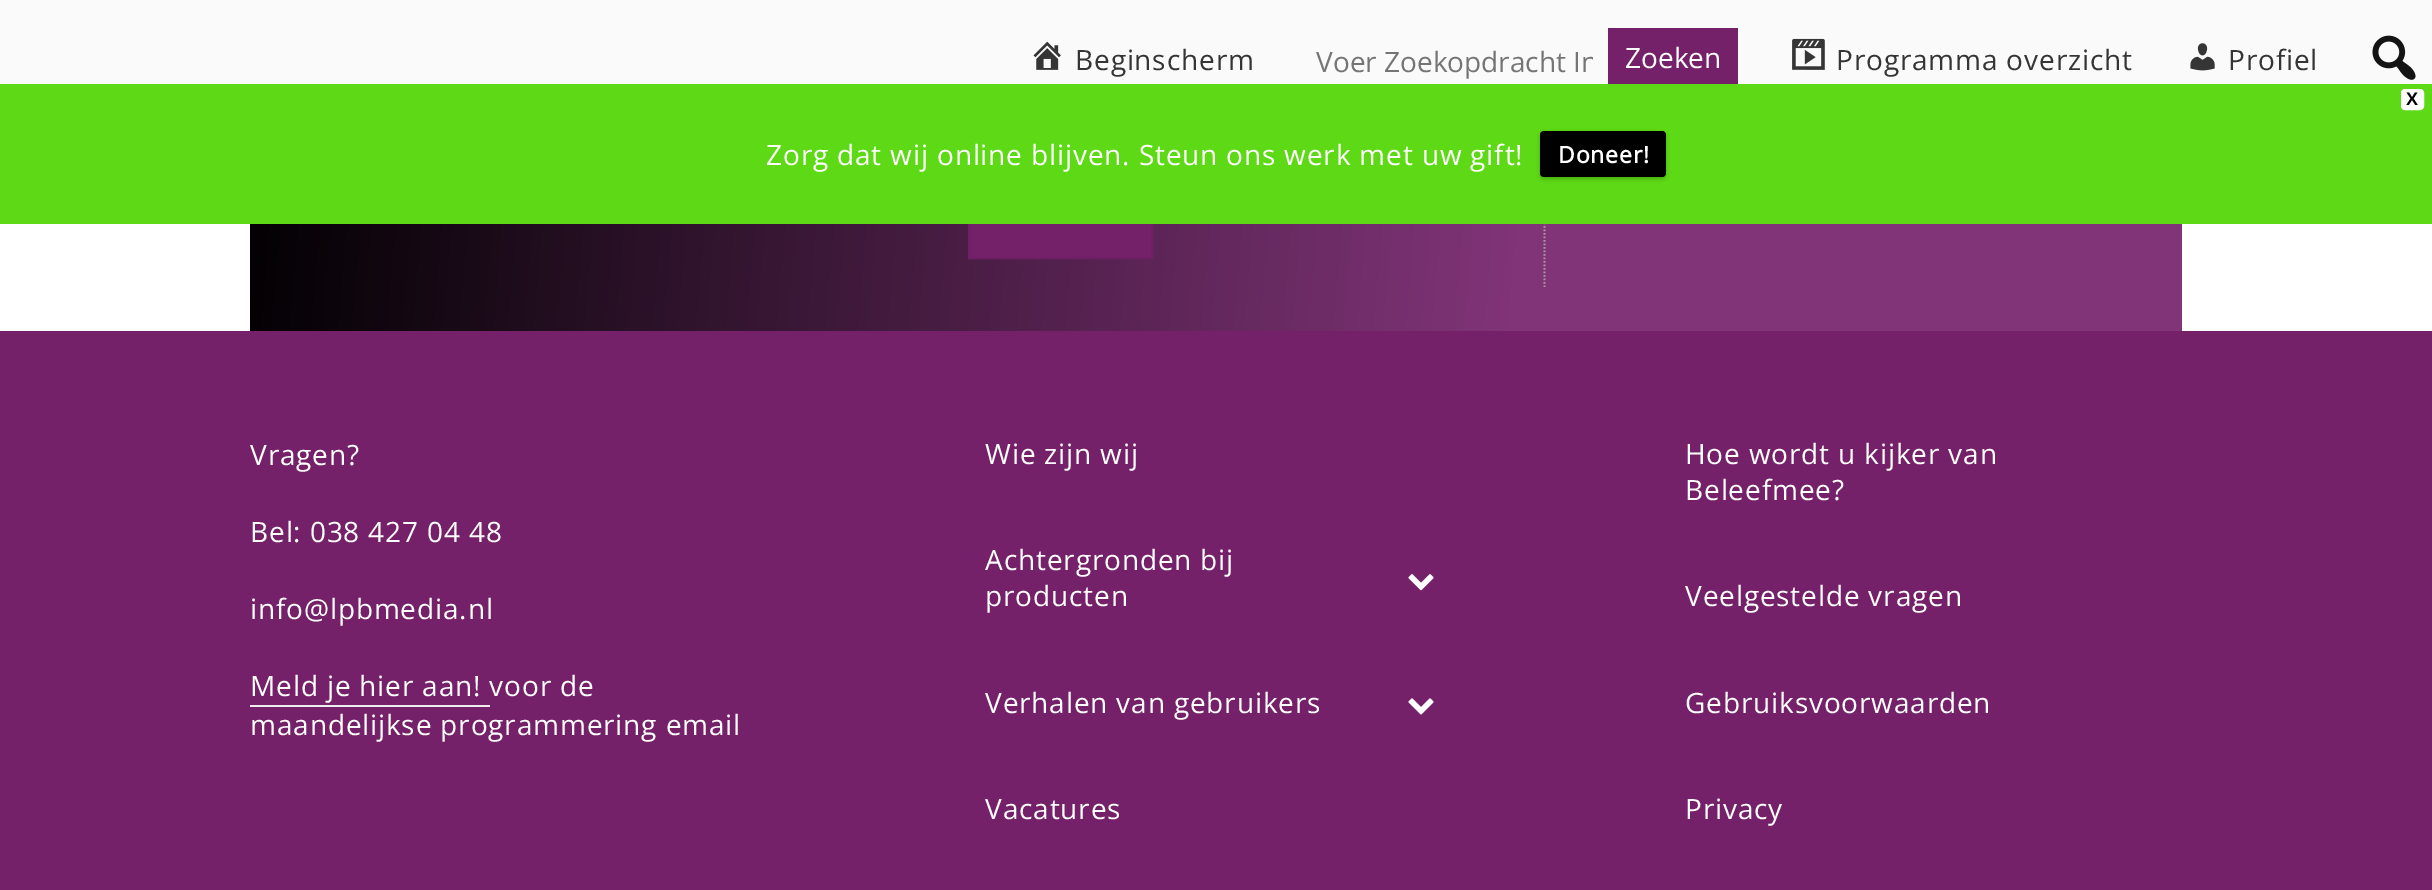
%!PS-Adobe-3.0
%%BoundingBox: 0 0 2432 890
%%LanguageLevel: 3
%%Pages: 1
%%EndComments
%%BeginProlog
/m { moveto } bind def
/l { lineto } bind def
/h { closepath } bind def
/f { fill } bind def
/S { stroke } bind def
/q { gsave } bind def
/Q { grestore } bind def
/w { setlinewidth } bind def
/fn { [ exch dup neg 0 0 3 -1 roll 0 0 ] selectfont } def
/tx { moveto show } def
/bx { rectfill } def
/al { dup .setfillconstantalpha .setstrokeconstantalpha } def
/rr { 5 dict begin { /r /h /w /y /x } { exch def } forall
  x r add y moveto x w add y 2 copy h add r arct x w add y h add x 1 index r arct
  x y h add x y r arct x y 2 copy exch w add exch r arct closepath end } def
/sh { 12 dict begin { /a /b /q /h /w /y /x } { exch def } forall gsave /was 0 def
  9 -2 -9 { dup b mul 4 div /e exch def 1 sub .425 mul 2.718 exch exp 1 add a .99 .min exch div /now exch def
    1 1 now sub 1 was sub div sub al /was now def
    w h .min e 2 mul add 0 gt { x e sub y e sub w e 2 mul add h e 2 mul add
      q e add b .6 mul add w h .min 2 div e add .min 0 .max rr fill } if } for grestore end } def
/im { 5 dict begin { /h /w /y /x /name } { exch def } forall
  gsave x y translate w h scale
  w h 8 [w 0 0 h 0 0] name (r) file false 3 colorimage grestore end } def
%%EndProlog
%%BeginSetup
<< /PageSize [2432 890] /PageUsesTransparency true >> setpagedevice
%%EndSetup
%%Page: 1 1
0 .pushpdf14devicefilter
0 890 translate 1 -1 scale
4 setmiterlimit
1 setgray
0 0 2432 890 bx
q 250 224 m 2182 224 l 2182 331 l 250 331 l h clip newpath
<< /ShadingType 2 /ColorSpace /DeviceRGB /Coords [236 -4.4 2197 167] /Extend [true true] /Function << /FunctionType 3 /Domain [0 1] /Functions [<< /FunctionType 2 /Domain [0 1] /C0 [0 0 0] /C1 [0.506 0.204 0.471] /N 1 >> << /FunctionType 2 /Domain [0 1] /C0 [0.506 0.204 0.471] /C1 [0.506 0.204 0.471] /N 1 >>] /Bounds [0.66] /Encode [0 1 0 1] >> >> shfill Q
0.459 0.129 0.416 setrgbcolor
970 224 181 33 bx
0.435 0.122 0.396 setrgbcolor
2 w
969 183 183 75 rectstroke
0.62 0.612 0.612 setrgbcolor
1.8 w
[1.75 1.75] 0 setdash
1544.5 -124 m 1544.5 287 l S
0.98 setgray
0 0 2432 84 bx
(image0.raw) 1033 41 28 29 im
/OpenSans-Regular 28 fn
0.208 setgray
1075 70 m 0.85 0 (Beginscherm) ashow
q
1316 42 277 39 rectclip
0.459 setgray
(Voer Zoekopdracht In) 1316 72 tx
Q
0.459 0.129 0.416 setrgbcolor
1608 28 130 56 bx
1 setgray
(Zoeken) 1625 68 tx
(image1.raw) 1792 38 33 32 im
0.208 setgray
1836 70 m 0.85 0 (Programma overzicht) ashow
(image2.raw) 2190 43 25 28 im
2228 70 m 0.85 0 (Profiel) ashow
(image3.raw) 2372 35 44 45 im
0.365 0.851 0.082 setrgbcolor
0 84 2432 140 bx
1 setgray
2402 90 21 19 3 rr q f Q
2 w
[] 0 setdash
S
/LiberationSans-Bold 18 fn
0 setgray
2406 105 m 0.85 0 (X) ashow
/OpenSans-Regular 28 fn
1 setgray
766 165 m 0.85 0 (Zorg dat wij online blijven. Steun ons werk met uw gift!) ashow
0 setgray
1540 133 126 46 4 2 0.2 sh
1540 131 126 46 4 rr f
/OpenSans-Bold 23 fn
1 setgray
1558 163 m 0.85 0 (Doneer!) ashow
0.459 0.129 0.416 setrgbcolor
0 331 2432 559 bx
/OpenSans-Regular 28 fn
1 setgray
250 465 m 0.85 0 (Vragen?) ashow
250 542 m 0.85 0 (Bel: 038 427 04 48) ashow
250 619 m 0.85 0 (info@lpbmedia.nl) ashow
250 696 m 0.85 0 (Meld je hier aan! voor de) ashow
0.933 setgray
250 705 240 2 bx
1 setgray
250 735 m 0.85 0 (maandelijkse programmering email) ashow
985 464 m 0.85 0 (Wie zijn wij) ashow
985 570 m 0.85 0 (Achtergronden bij) ashow
985 606 m 0.85 0 (producten) ashow
(image4.raw) 1408 574 26 17 im
985 713 m 0.85 0 (Verhalen van gebruikers) ashow
(image5.raw) 1408 698 26 17 im
985 819 m 0.85 0 (Vacatures) ashow
1685 464 m 0.85 0 (Hoe wordt u kijker van) ashow
1685 500 m 0.85 0 (Beleefmee?) ashow
1685 606 m 0.85 0 (Veelgestelde vragen) ashow
1685 713 m 0.85 0 (Gebruiksvoorwaarden) ashow
1685 819 m 0.85 0 (Privacy) ashow
.poppdf14devicefilter showpage
%%EOF
